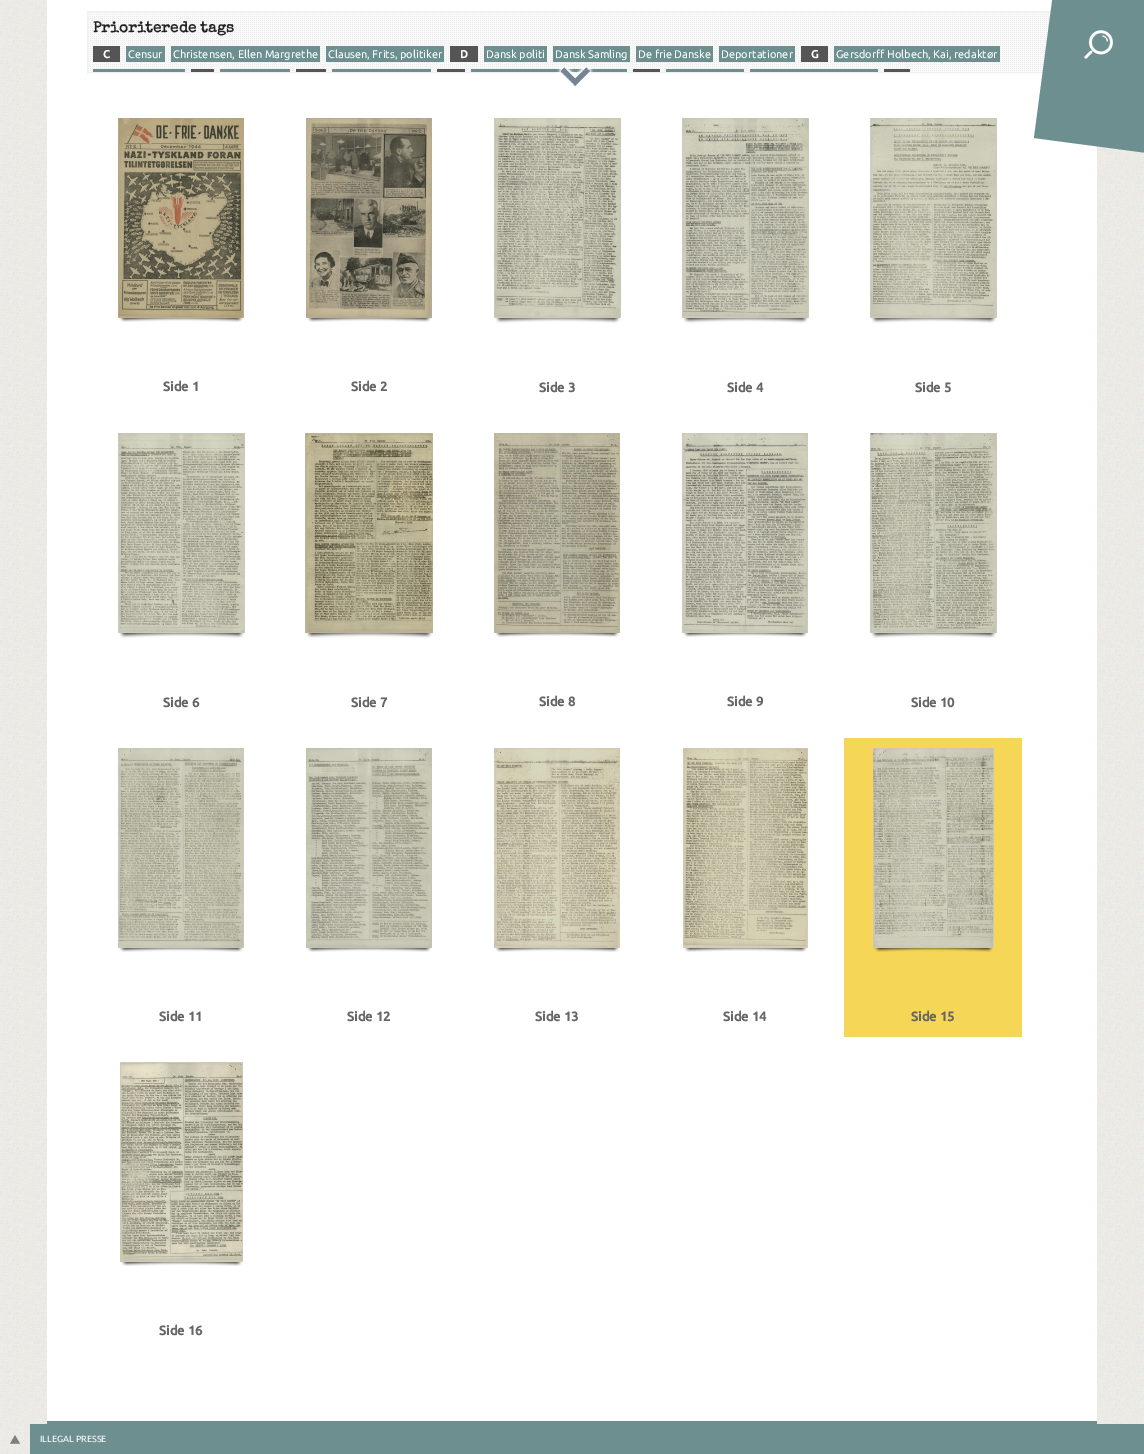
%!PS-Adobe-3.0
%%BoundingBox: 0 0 1144 1454
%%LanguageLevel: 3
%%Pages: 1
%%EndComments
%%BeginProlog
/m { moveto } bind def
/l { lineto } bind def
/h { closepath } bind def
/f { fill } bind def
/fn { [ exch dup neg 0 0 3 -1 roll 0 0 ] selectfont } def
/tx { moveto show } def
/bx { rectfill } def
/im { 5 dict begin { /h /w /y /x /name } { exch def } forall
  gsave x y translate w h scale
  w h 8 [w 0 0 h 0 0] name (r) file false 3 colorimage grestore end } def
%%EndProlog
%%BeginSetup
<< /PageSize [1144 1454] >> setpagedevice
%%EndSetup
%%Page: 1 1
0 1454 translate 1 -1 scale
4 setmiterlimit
1 setgray
0 0 1144 1454 bx
(image0.raw) 0 0 1144 1454 im
0.427 0.561 0.565 setrgbcolor
47 1421 1050 3 bx
1 setgray
47 0 1050 1421 bx
0.976 setgray
88 12 963 60 bx
(image1.raw) 88 12 963 59 im
0.945 setgray
87.5 11.5 969 61 rectstroke
/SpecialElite-Bold 15.25 fn
0.133 setgray
(Prioriterede tags) 93 32 tx
0.333 setgray
93 46 27 16 bx
/Ubuntu-Bold 11 fn
1 setgray
(C) 103 58 tx
0.427 0.561 0.565 setrgbcolor
126 46 39 16 bx
/Ubuntu-Regular 11 fn
1 setgray
(Censur) 128 58 tx
0.427 0.561 0.565 setrgbcolor
171 46 149 16 bx
1 setgray
(Christensen, Ellen Margrethe) 173 58 tx
0.427 0.561 0.565 setrgbcolor
326 46 118 16 bx
1 setgray
(Clausen, Frits, politiker) 328 58 tx
0.333 setgray
450 46 28 16 bx
/Ubuntu-Bold 11 fn
1 setgray
(D) 460 58 tx
0.427 0.561 0.565 setrgbcolor
484 46 63 16 bx
/Ubuntu-Regular 11 fn
1 setgray
(Dansk politi) 486 58 tx
0.427 0.561 0.565 setrgbcolor
553 46 77 16 bx
1 setgray
(Dansk Samling) 555 58 tx
0.427 0.561 0.565 setrgbcolor
636 46 77 16 bx
1 setgray
(De frie Danske) 638 58 tx
0.427 0.561 0.565 setrgbcolor
719 46 76 16 bx
1 setgray
(Deportationer) 721 58 tx
0.333 setgray
801 46 27 16 bx
/Ubuntu-Bold 11 fn
1 setgray
(G) 811 58 tx
0.427 0.561 0.565 setrgbcolor
834 46 166 16 bx
/Ubuntu-Regular 11 fn
1 setgray
(Gersdorff Holbech, Kai, redaktør) 836 58 tx
0.427 0.561 0.565 setrgbcolor
93 69 92 3 bx
0.333 setgray
191 69 23 3 bx
0.427 0.561 0.565 setrgbcolor
220 69 70 3 bx
0.333 setgray
296 69 30 3 bx
0.427 0.561 0.565 setrgbcolor
332 69 99 3 bx
0.333 setgray
437 69 28 3 bx
0.427 0.561 0.565 setrgbcolor
471 69 156 3 bx
0.333 setgray
633 69 27 3 bx
0.427 0.561 0.565 setrgbcolor
666 69 78 3 bx
750 69 128 3 bx
0.333 setgray
884 69 26 3 bx
(image2.raw) 557 66 37 21 im
(image3.raw) 118 118 126 200 im
(image4.raw) 119 318 124 4 im
/Ubuntu-Bold 13 fn
0.4 setgray
(Side 1) 163 391 tx
(image5.raw) 306 118 126 200 im
(image4.raw) 307 318 124 4 im
(Side 2) 351 391 tx
(image6.raw) 494 118 127 200 im
(image7.raw) 495 318 125 5 im
(Side 3) 539 392 tx
(image8.raw) 682 118 127 200 im
(image7.raw) 683 318 125 5 im
(Side 4) 727 392 tx
(image9.raw) 870 118 127 200 im
(image7.raw) 871 318 125 5 im
(Side 5) 915 392 tx
(image10.raw) 118 433 127 200 im
(image7.raw) 119 633 125 5 im
(Side 6) 163 707 tx
(image11.raw) 305 433 128 200 im
(image12.raw) 306 633 126 5 im
(Side 7) 351 707 tx
(image13.raw) 494 433 126 200 im
(image4.raw) 495 633 124 4 im
(Side 8) 539 706 tx
(image14.raw) 682 433 126 200 im
(image4.raw) 683 633 124 4 im
(Side 9) 727 706 tx
(image15.raw) 870 433 127 200 im
(image7.raw) 871 633 125 5 im
(Side 10) 911 707 tx
(image16.raw) 118 748 126 200 im
(image4.raw) 119 948 124 4 im
(Side 11) 159 1021 tx
(image17.raw) 306 748 126 200 im
(image4.raw) 307 948 124 4 im
(Side 12) 347 1021 tx
(image18.raw) 494 748 126 200 im
(image4.raw) 495 948 124 4 im
(Side 13) 535 1021 tx
(image19.raw) 683 748 125 200 im
(image20.raw) 684 948 123 4 im
(Side 14) 723 1021 tx
0.965 0.839 0.337 setrgbcolor
844 738 178 299 bx
(image21.raw) 873 748 121 200 im
(image22.raw) 874 948 119 4 im
0.4 setgray
(Side 15) 911 1021 tx
(image23.raw) 120 1062 123 200 im
(image24.raw) 121 1262 121 4 im
(Side 16) 159 1335 tx
0.427 0.561 0.565 setrgbcolor
1076 -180 m 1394 -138 l 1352 180 l 1034 138 l h f
(image25.raw) 1084 30 29 29 im
(image26.raw) 10 1435 10 9 im
30 1424 1114 30 bx
/Ubuntu-Regular 9 fn
1 setgray
(ILLEGAL PRESSE) 40 1442 tx
showpage
%%EOF
